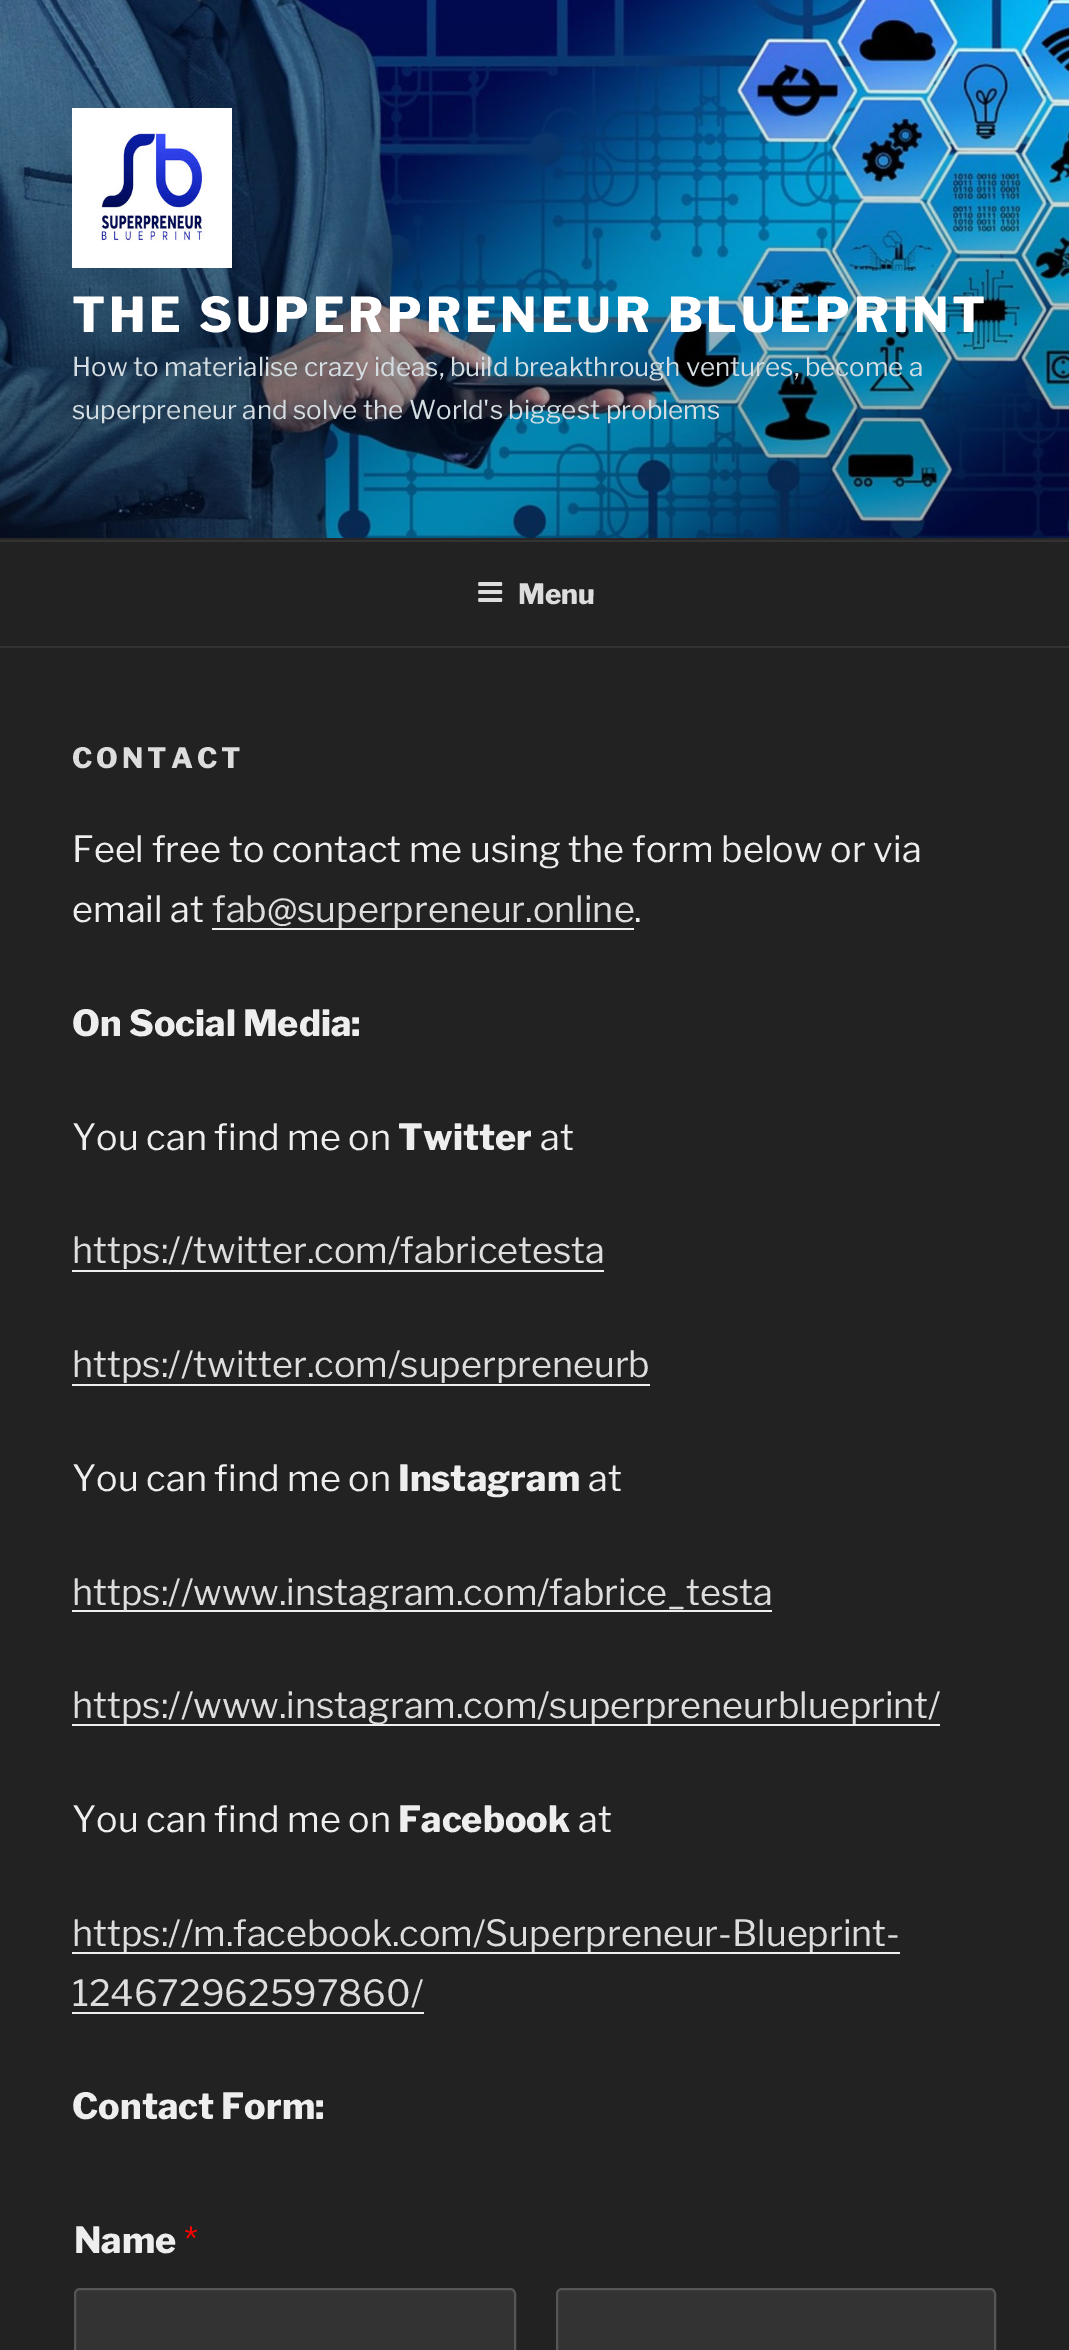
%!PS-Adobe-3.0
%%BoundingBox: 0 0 1069 2350
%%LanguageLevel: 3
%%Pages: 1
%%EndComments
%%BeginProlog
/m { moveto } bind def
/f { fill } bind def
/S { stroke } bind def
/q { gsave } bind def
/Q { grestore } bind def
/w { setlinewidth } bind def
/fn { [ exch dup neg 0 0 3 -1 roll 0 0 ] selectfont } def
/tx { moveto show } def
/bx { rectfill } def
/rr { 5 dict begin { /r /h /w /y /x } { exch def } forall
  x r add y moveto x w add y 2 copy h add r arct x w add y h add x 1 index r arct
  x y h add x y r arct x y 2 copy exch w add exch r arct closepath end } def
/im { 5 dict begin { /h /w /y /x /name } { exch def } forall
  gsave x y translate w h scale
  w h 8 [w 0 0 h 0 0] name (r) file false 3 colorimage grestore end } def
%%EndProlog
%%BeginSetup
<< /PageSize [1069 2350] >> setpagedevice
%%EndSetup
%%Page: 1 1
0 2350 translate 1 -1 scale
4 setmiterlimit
0.133 setgray
0 0 1069 2350 bx
0.149 setgray
0 538 1069 2 bx
(image0.raw) 0 0 1069 538 im
(image1.raw) 72 108 160 160 im
/LibreFranklin-ExtraBold 48 fn
1 setgray
72 332 m 3.85 0 (THE SUPERPRENEUR BLUEPRINT) ashow
/LibreFranklin-Regular 26 fn
0.831 0.867 0.886 setrgbcolor
(How to materialise crazy ideas, build breakthrough ventures, become a) 72 376 tx
(superpreneur and solve the World's biggest problems) 72 419 tx
0.2 setgray
0 540 1069 2 bx
0 646 1069 2 bx
(image2.raw) 478 582 25 20 im
/LibreFranklin-ExtraBold 28 fn
0.867 setgray
(Menu) 518 604 tx
72 768 m 4 0 (CONTACT) ashow
/LibreFranklin-Regular 36 fn
0.933 setgray
(Feel free to contact me using the form below or via) 72 862 tx
(email at) 72 922 tx
0.867 setgray
(fab@superpreneur.online) 212 922 tx
0.941 setgray
212 928 422 2 bx
0.933 setgray
(.) 634 922 tx
/LibreFranklin-ExtraBold 36 fn
(On Social Media:) 72 1036 tx
/LibreFranklin-Regular 36 fn
(You can find me on) 72 1150 tx
/LibreFranklin-ExtraBold 36 fn
(Twitter) 398 1150 tx
/LibreFranklin-Regular 36 fn
(at) 540 1150 tx
0.867 setgray
(https://twitter.com/fabricetesta) 72 1263 tx
0.941 setgray
72 1270 532 2 bx
0.867 setgray
(https://twitter.com/superpreneurb) 72 1377 tx
0.941 setgray
72 1384 578 2 bx
0.933 setgray
(You can find me on) 72 1491 tx
/LibreFranklin-ExtraBold 36 fn
(Instagram) 398 1491 tx
/LibreFranklin-Regular 36 fn
(at) 588 1491 tx
0.941 setgray
72 1610 700 2 bx
0.867 setgray
(https://www.instagram.com/fabrice_testa) 72 1605 tx
0.941 setgray
72 1724 868 2 bx
0.867 setgray
(https://www.instagram.com/superpreneurblueprint/) 72 1718 tx
0.933 setgray
(You can find me on) 72 1832 tx
/LibreFranklin-ExtraBold 36 fn
(Facebook) 398 1832 tx
/LibreFranklin-Regular 36 fn
(at) 578 1832 tx
0.867 setgray
(https://m.facebook.com/Superpreneur-Blueprint-) 72 1946 tx
0.941 setgray
72 1952 828 2 bx
0.867 setgray
(124672962597860/) 72 2006 tx
0.941 setgray
72 2012 352 2 bx
/LibreFranklin-ExtraBold 36 fn
0.933 setgray
(Contact Form:) 72 2119 tx
(Name) 74 2253 tx
/LibreFranklin-Regular 36 fn
1 0 0 setrgbcolor
(*) 184 2253 tx
0.2 setgray
75 2289 440 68 5 rr q f Q
0.333 setgray
2 w
S
0.2 setgray
557 2289 438 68 5 rr q f Q
0.333 setgray
S
showpage
%%EOF
